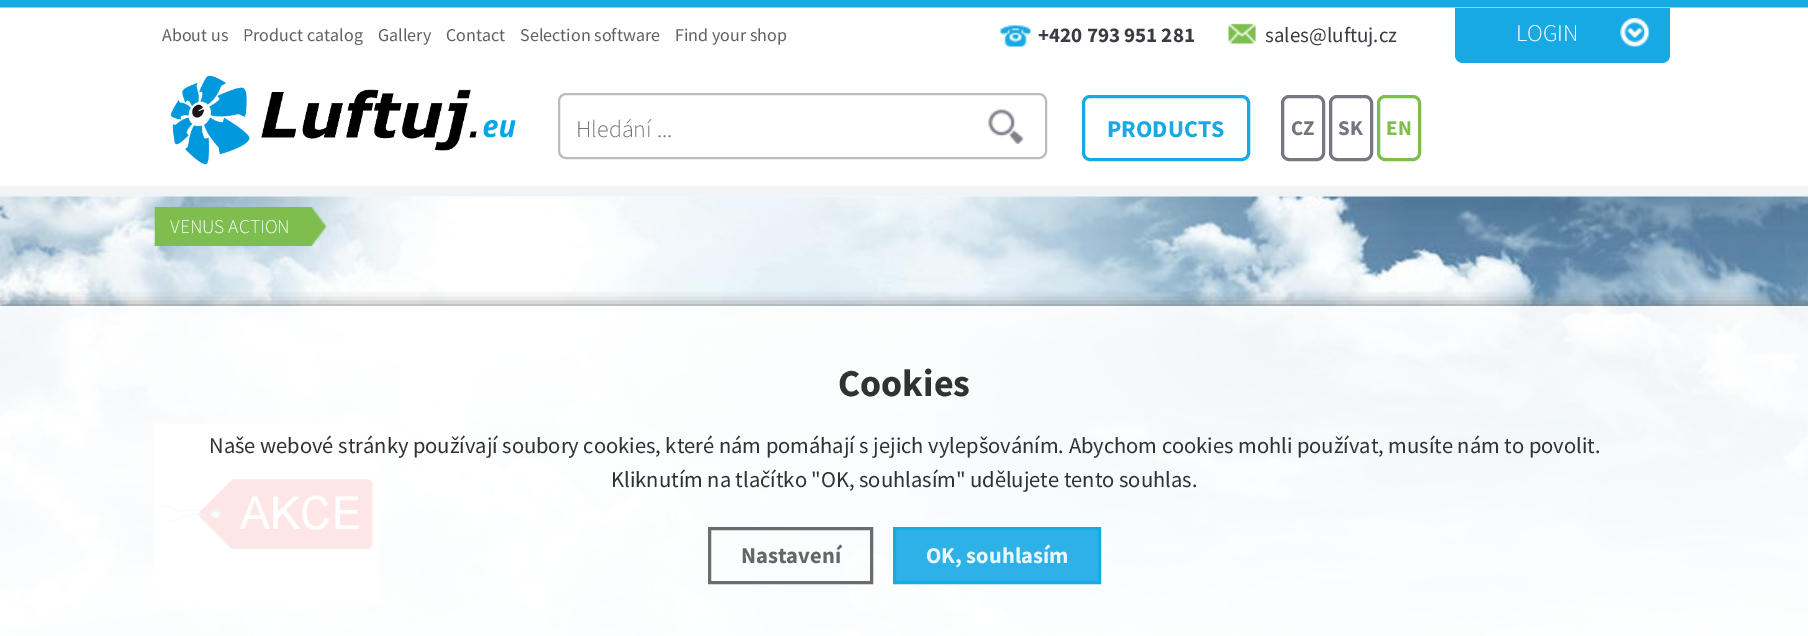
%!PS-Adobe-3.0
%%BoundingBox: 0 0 1808 636
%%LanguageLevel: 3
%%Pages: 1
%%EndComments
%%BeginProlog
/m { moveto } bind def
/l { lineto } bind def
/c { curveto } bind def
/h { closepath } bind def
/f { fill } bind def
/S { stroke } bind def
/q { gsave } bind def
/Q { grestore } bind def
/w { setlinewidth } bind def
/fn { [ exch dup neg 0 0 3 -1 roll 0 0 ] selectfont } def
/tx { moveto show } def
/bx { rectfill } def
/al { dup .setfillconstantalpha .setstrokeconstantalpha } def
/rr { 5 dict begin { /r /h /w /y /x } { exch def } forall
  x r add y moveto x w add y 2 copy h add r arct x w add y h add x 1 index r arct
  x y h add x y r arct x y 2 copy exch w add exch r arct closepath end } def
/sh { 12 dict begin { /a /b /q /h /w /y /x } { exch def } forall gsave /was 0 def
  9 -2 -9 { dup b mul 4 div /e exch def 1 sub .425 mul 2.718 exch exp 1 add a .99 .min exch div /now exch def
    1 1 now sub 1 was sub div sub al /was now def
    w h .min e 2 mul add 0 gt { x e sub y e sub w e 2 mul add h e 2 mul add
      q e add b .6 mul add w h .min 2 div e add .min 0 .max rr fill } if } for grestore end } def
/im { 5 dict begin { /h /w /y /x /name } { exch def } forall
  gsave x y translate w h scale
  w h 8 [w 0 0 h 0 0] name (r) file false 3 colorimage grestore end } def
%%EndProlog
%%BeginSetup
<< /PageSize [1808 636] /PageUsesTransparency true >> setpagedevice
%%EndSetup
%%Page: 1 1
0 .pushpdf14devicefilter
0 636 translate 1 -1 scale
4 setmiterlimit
1 setgray
0 0 1808 636 bx
(image0.raw) 0 0 1808 197 im
(image1.raw) 0 196 1808 440 im
/SourceSansPro-Regular 18 fn
0.365 0.384 0.392 setrgbcolor
(About us) 162 41 tx
(Product catalog) 243 41 tx
(Gallery) 378 41 tx
(Contact) 446 41 tx
(Selection software) 520 41 tx
(Find your shop) 675 41 tx
(image2.raw) 1000 25 31 22 im
/SourceSansPro-Bold 21 fn
0.227 0.235 0.263 setrgbcolor
(+420 793 951 281) 1038 42 tx
(image3.raw) 1228 23 28 21 im
/SourceSansPro-Regular 21 fn
(sales@luftuj.cz) 1265 42 tx
0.09 0.663 0.89 setrgbcolor
1455 8 m 1670 8 l 1670 55 l 1670 59.5 1666.5 63 1662 63 c 1463 63 l 1458.5 63 1455 59.5 1455 55 c h f
(image4.raw) 1620 18 30 29 im
/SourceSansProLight-Light 24 fn
1 setgray
(LOGIN) 1516 41 tx
(image5.raw) 170 75 346 90 im
(image6.raw) 988 109 36 35 im
0.714 0.741 0.753 setrgbcolor
2 w
559 94 487 64 7 rr S
0.451 0.459 0.494 setrgbcolor
(Hledání ...) 576 137 tx
0.09 0.663 0.89 setrgbcolor
3 w
1083.5 96.5 165 63 6.5 rr S
/SourceSansPro-Bold 24 fn
(PRODUCTS) 1107 137 tx
0.467 0.463 0.506 setrgbcolor
1282.5 96.5 41 63 6.5 rr S
/SourceSansPro-Bold 21 fn
0.451 0.459 0.494 setrgbcolor
(CZ) 1291 135 tx
0.467 0.463 0.506 setrgbcolor
1330.5 96.5 41 63 6.5 rr S
0.451 0.459 0.494 setrgbcolor
(SK) 1338 135 tx
0.494 0.745 0.306 setrgbcolor
1378.5 96.5 41 63 6.5 rr S
(EN) 1386 135 tx
(image7.raw) 154 207 173 39 im
/SourceSansProLight-Light 19.5 fn
1 setgray
(VENUS ACTION) 170 233 tx
(image8.raw) 154 424 226 181 im
q
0 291 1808 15 rectclip
0.467 setgray
0 306 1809 330 0 7.5 0.9 sh
Q
0.9 al
0 306 1808 330 bx
/SourceSansPro-Bold 38 fn
1 al
0.192 0.196 0.196 setrgbcolor
(Cookies) 838 396 tx
/SourceSansPro-Regular 22.5 fn
(Naše webové stránky používají soubory cookies, které nám pomáhají s jejich vylepšováním. Abychom cookies mohli používat, musíte nám to povolit.) 209 453 tx
(Kliknutím na tlačítko "OK, souhlasím" udělujete tento souhlas.) 611 487 tx
0.9 al
0.361 0.361 0.365 setrgbcolor
709.5 528.5 162 54 rectstroke
/SourceSansPro-Bold 22.5 fn
1 al
0.4 setgray
(Nastavení) 741 563 tx
0.9 al
0.09 0.663 0.89 setrgbcolor
894.5 528.5 m 1099.5 528.5 l 1099.5 582.5 l 894.5 582.5 l h f
1 al
0.098 0.667 0.89 setrgbcolor
894.5 528.5 m 1099.5 528.5 l 1099.5 582.5 l 894.5 582.5 l h S
0.918 0.969 0.988 setrgbcolor
(OK, souhlasím) 926 563 tx
.poppdf14devicefilter showpage
%%EOF
